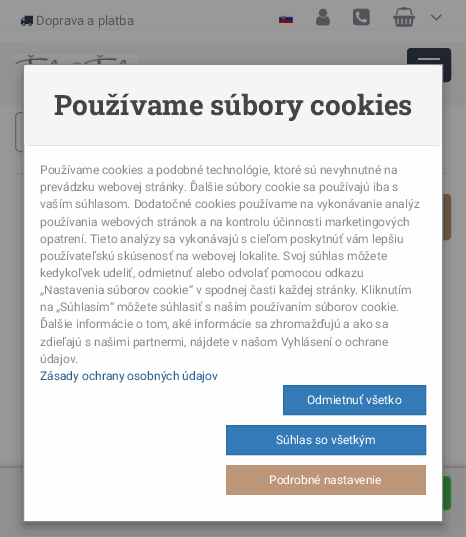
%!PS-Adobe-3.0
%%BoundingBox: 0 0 466 537
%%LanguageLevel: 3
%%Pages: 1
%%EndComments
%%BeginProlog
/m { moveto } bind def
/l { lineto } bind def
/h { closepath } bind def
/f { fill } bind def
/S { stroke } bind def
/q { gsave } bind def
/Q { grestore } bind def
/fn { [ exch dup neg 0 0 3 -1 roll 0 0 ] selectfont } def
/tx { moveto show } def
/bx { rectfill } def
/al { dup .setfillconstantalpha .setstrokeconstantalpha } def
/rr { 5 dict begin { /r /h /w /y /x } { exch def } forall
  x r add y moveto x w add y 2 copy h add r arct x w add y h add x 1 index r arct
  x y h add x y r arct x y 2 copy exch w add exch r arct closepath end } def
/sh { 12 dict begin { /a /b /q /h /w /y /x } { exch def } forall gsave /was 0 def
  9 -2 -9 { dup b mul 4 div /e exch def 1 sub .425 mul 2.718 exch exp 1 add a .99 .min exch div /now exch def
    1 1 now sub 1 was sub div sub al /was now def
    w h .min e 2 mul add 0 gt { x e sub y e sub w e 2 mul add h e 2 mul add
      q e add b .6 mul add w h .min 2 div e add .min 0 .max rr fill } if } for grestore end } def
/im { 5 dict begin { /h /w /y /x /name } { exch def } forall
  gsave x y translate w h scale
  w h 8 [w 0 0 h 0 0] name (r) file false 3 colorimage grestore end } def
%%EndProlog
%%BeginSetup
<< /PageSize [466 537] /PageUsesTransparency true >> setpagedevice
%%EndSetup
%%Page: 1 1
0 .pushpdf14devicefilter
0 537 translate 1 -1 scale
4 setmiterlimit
0.6 setgray
0 0 466 537 bx
0 setgray
0 31 466 72 0 1.5 0.08 sh
0.6 setgray
0 30 466 12 bx
(image0.raw) 20 15 13 11 im
/Roboto-Regular 13 fn
0.318 0.329 0.349 setrgbcolor
(Doprava a platba) 36 25 tx
(image1.raw) 279 14 14 9 im
(image2.raw) 316 8 14 18 im
(image3.raw) 353 8 17 18 im
(image4.raw) 393 7 23 20 im
(image5.raw) 430 14 12 7 im
0.58 setgray
0 42 466 60 bx
(image6.raw) 15 54 123 25 im
0.125 0.149 0.184 setrgbcolor
407.5 48.5 43 33 3.5 rr q f Q
S
0.58 setgray
418 58 22 2 1 rr f
0.42 setgray
15.5 112.5 86 39 4.5 rr S
0.541 setgray
15 173 436 1 bx
0.443 0.353 0.286 setrgbcolor
248.5 194.5 202 45 3.5 rr q f Q
S
0 setgray
-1 467 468 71 0 3 0.3 sh
0.569 setgray
0 468 466 69 bx
0.161 0.443 0.161 setrgbcolor
307.5 476.5 143 33 3.5 rr q f Q
0.22 0.498 0.22 setrgbcolor
S
0 setgray
23 70 420 458 0 10 0.19 sh
23 68 420 458 0 4 0.2 sh
0.996 setgray
23.5 64.5 m 442.5 64.5 l 442.5 521.5 l 23.5 521.5 l h q f Q
0.533 setgray
S
0.961 setgray
24 65 418 81 6 rr f
0.08 al
0 setgray
27 145 412 1 bx
/RobotoSlab-Bold 28 fn
1 al
0.267 setgray
(Používame súbory cookies) 54 115 tx
/Roboto-Regular 12 fn
0.529 0.549 0.58 setrgbcolor
(Používame cookies a podobné technológie, ktoré sú nevyhnutné na) 40 174 tx
(prevádzku webovej stránky. Ďalšie súbory cookie sa používajú iba s) 40 191 tx
(vaším súhlasom. Dodatočné cookies používame na vykonávanie analýz) 40 208 tx
(používania webových stránok a na kontrolu účinnosti marketingových) 40 226 tx
(opatrení. Tieto analýzy sa vykonávajú s cieľom poskytnúť vám lepšiu) 40 243 tx
(používateľskú skúsenosť na webovej lokalite. Svoj súhlas môžete) 40 260 tx
(kedykoľvek udeliť, odmietnuť alebo odvolať pomocou odkazu) 40 277 tx
(„Nastavenia súborov cookie“ v spodnej časti každej stránky. Kliknutím) 40 294 tx
(na „Súhlasím“ môžete súhlasiť s naším používaním súborov cookie.) 40 311 tx
(Ďalšie informácie o tom, aké informácie sa zhromažďujú a ako sa) 40 328 tx
(zdieľajú s našimi partnermi, nájdete v našom Vyhlásení o ochrane) 40 346 tx
(údajov.) 40 363 tx
0.157 0.376 0.565 setrgbcolor
(Zásady ochrany osobných údajov) 40 380 tx
0.2 0.478 0.718 setrgbcolor
283.5 385.5 m 425.5 385.5 l 425.5 414.5 l 283.5 414.5 l h q f Q
0.18 0.427 0.643 setrgbcolor
S
1 setgray
(Odmietnuť všetko) 307 404 tx
0.2 0.478 0.718 setrgbcolor
226.5 425.5 m 425.5 425.5 l 425.5 454.5 l 226.5 454.5 l h q f Q
0.18 0.427 0.643 setrgbcolor
S
1 setgray
(Súhlas so všetkým) 276 444 tx
0.741 0.588 0.478 setrgbcolor
226 465 200 30 bx
1 setgray
(Podrobné nastavenie) 269 484 tx
.poppdf14devicefilter showpage
%%EOF
